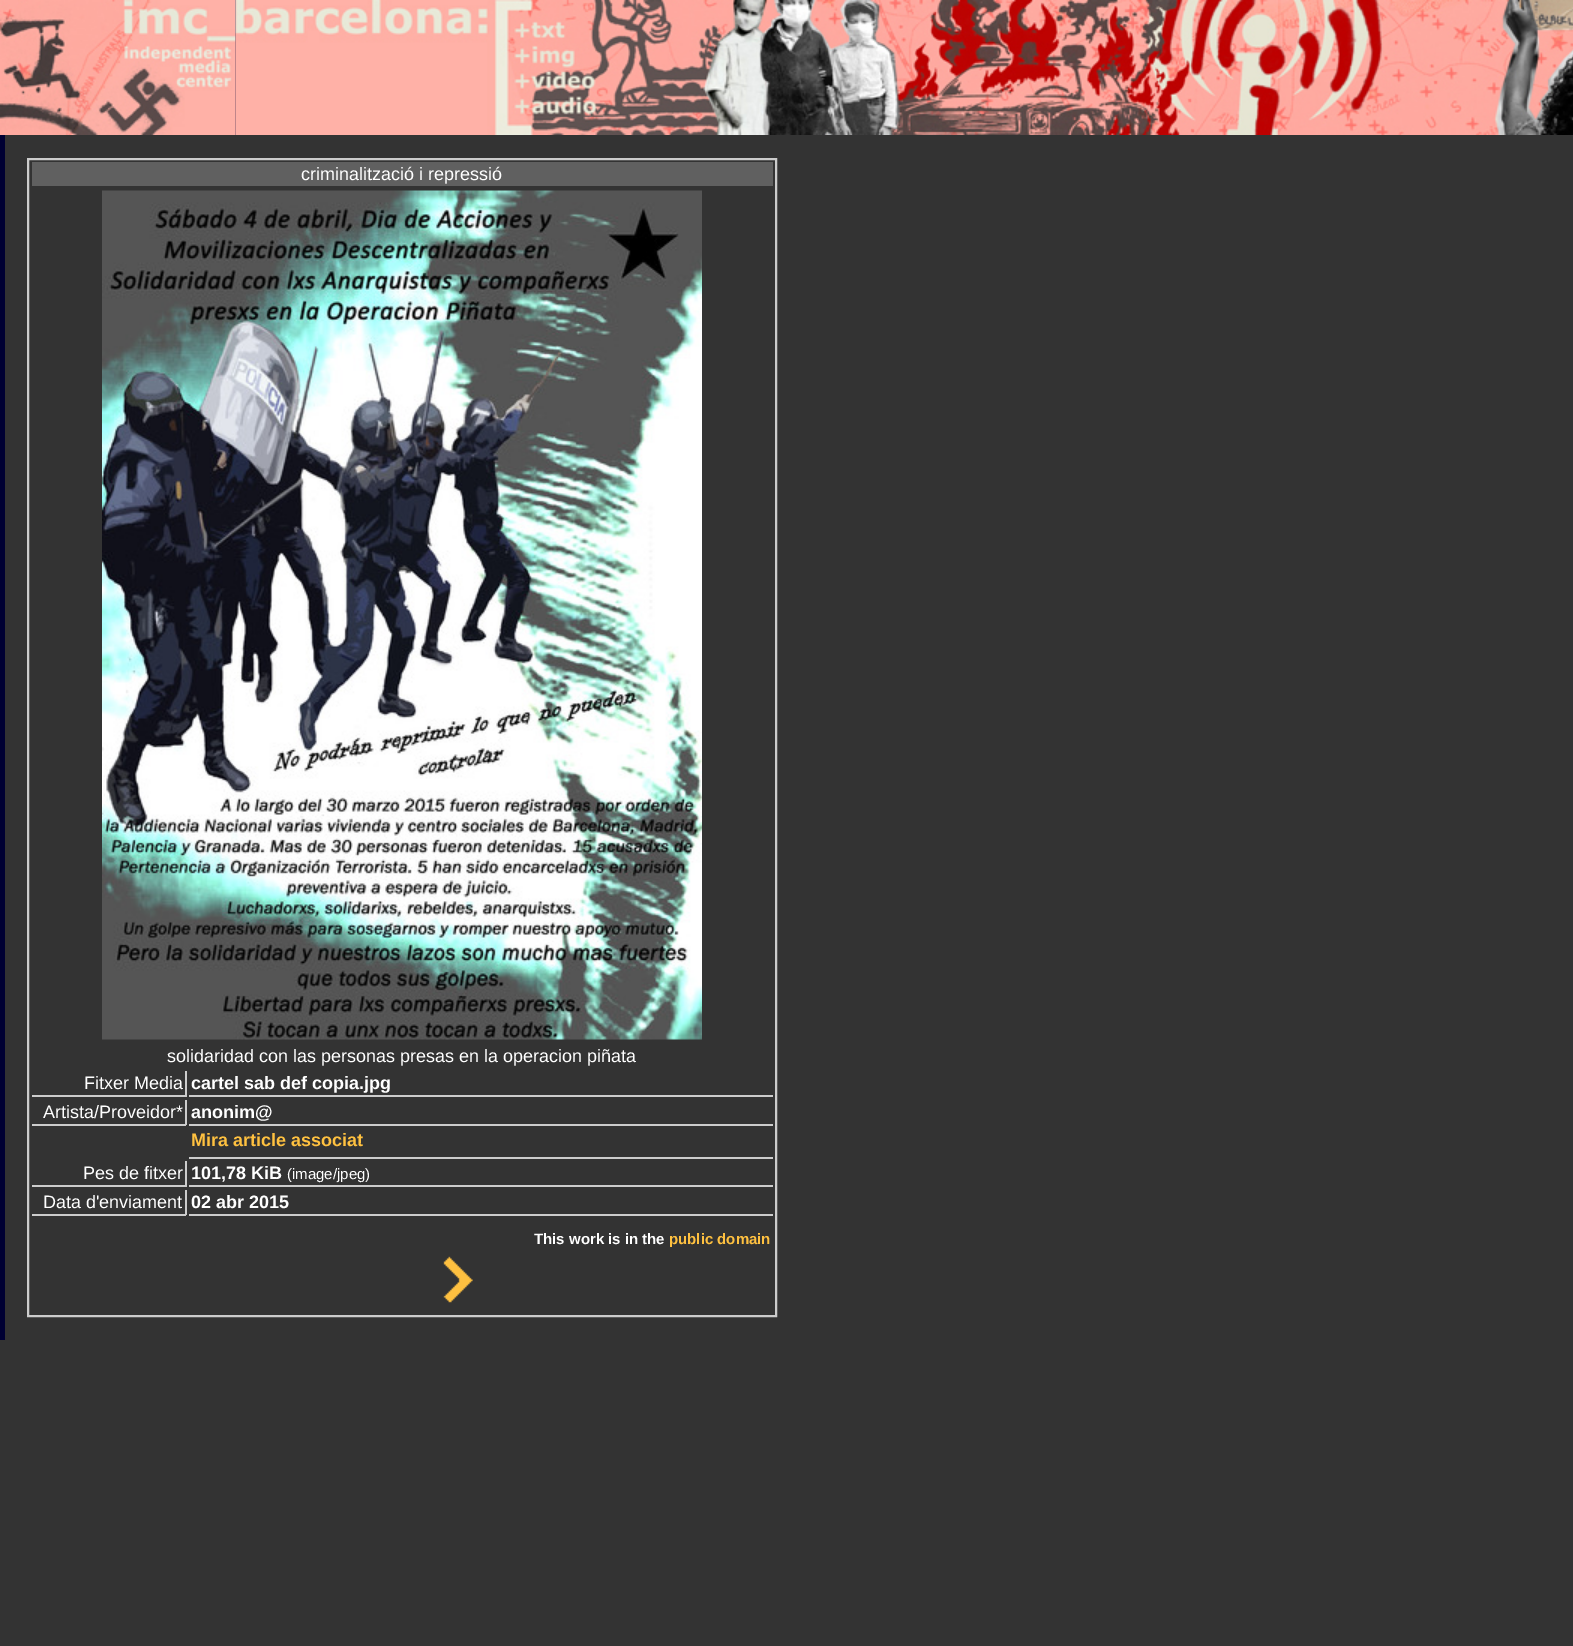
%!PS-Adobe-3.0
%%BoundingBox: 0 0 1573 1646
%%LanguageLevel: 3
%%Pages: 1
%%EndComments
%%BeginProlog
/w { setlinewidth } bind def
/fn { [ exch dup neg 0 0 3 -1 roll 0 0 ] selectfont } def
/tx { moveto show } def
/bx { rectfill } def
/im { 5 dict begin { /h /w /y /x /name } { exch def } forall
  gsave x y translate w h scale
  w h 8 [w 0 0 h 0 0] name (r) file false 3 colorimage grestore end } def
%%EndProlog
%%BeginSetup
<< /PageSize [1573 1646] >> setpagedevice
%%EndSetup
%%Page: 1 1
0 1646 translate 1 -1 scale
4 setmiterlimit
0.2 setgray
0 0 1573 1646 bx
(image0.raw) 0 0 236 135 im
(image1.raw) 235 0 1338 135 im
0 0 0.2 setrgbcolor
0 135 5 1205 bx
0.8 setgray
2 w
28 159 748 1157 rectstroke
0.376 setgray
32 162 741 24 bx
/LiberationSans-Regular 18 fn
1 setgray
(criminalització i repressió) 301 180 tx
(image2.raw) 102 190 600 850 im
(solidaridad con las personas presas en la operacion piñata) 167 1062 tx
0.8 setgray
185 1071 2 26 bx
32 1095 154 2 bx
1 setgray
(Fitxer Media) 84 1089 tx
0.8 setgray
189 1095 584 2 bx
/LiberationSans-Bold 18 fn
1 setgray
(cartel sab def copia.jpg) 191 1089 tx
0.8 setgray
185 1100 2 25 bx
32 1124 154 2 bx
/LiberationSans-Regular 18 fn
1 setgray
(Artista/Proveidor*) 43 1118 tx
0.8 setgray
189 1124 584 2 bx
/LiberationSans-Bold 18 fn
1 setgray
(anonim@) 191 1118 tx
0.8 setgray
189 1157 584 2 bx
1 0.757 0.251 setrgbcolor
(Mira article associat) 191 1146 tx
0.8 setgray
185 1161 2 26 bx
32 1185 154 2 bx
/LiberationSans-Regular 18 fn
1 setgray
(Pes de fitxer) 83 1179 tx
0.8 setgray
189 1185 584 2 bx
/LiberationSans-Bold 18 fn
1 setgray
(101,78 KiB) 191 1179 tx
/LiberationSans-Regular 15 fn
(\(image/jpeg\)) 287 1179 tx
0.8 setgray
185 1190 2 25 bx
32 1214 154 2 bx
/LiberationSans-Regular 18 fn
1 setgray
(Data d'enviament) 43 1208 tx
0.8 setgray
189 1214 584 2 bx
/LiberationSans-Bold 18 fn
1 setgray
(02 abr 2015) 191 1208 tx
/LiberationSans-Bold 15 fn
(This work is in the) 534 1244 tx
1 0.757 0.251 setrgbcolor
(public domain) 669 1244 tx
(image3.raw) 443 1256 30 47 im
showpage
%%EOF
